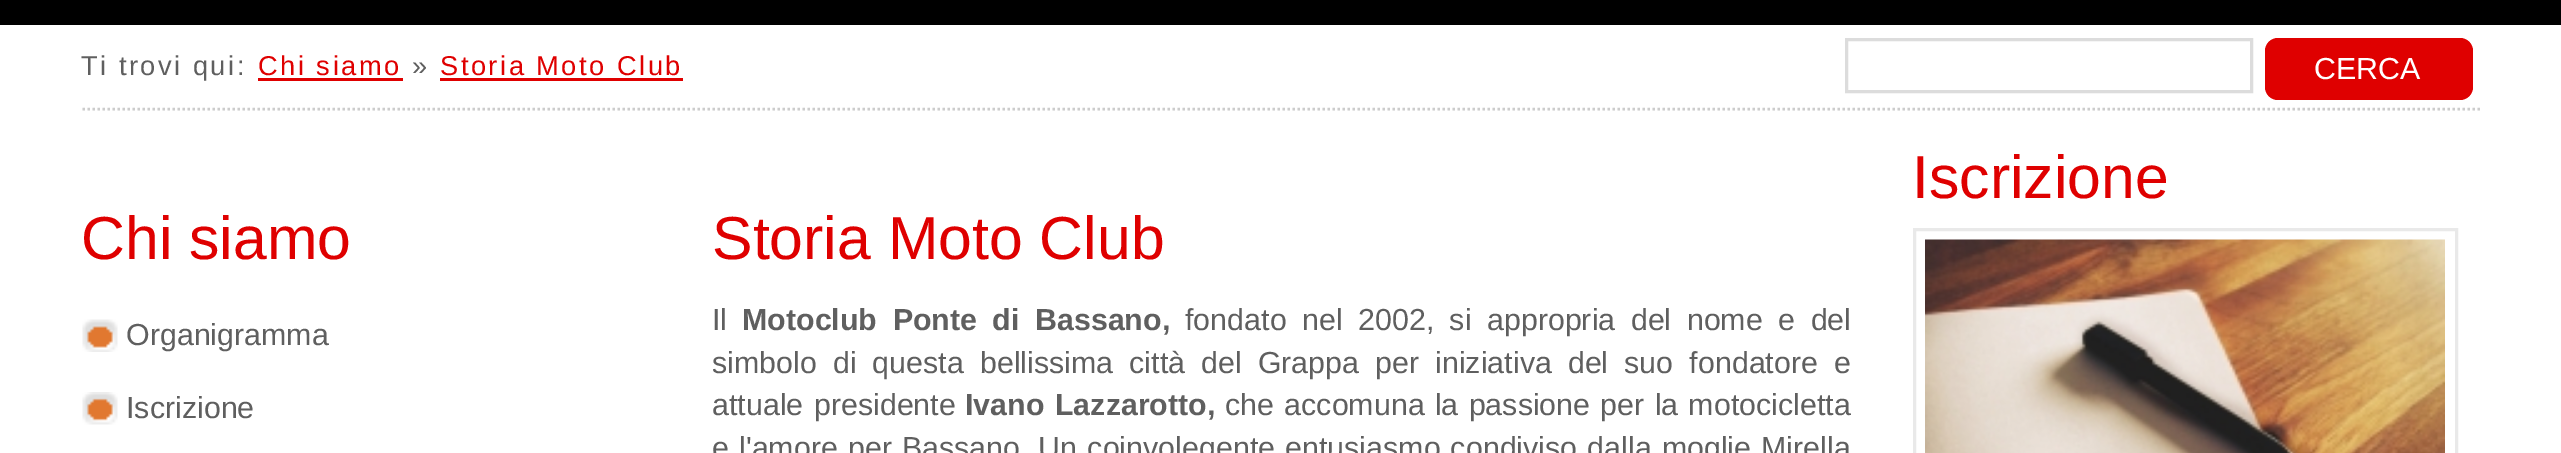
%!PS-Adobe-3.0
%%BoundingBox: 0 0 2561 453
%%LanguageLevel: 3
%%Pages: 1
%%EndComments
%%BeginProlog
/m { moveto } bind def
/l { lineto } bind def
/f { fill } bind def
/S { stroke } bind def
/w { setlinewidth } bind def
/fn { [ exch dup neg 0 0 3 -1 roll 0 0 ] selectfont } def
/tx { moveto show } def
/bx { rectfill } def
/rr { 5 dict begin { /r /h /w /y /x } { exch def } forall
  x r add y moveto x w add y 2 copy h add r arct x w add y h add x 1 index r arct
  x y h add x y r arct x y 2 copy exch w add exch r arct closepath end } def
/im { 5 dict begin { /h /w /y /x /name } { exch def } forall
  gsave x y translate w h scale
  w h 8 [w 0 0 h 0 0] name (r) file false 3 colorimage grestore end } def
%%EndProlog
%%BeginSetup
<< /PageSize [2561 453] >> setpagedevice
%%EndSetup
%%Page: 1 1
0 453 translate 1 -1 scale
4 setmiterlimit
1 setgray
0 0 2561 453 bx
0 setgray
0 0 2561 25 bx
0.8 setgray
2.5 w
[2.5 2.5] 0 setdash
82.5 109 m 2482.5 109 l S
/LiberationSans-Regular 27.25 fn
0.373 setgray
81 75 m 2.5 0 (Ti trovi qui:) ashow
0.875 0 0 setrgbcolor
258 75 m 2.5 0 (Chi siamo) ashow
258 78 145 3 bx
0.373 setgray
412 75 m 2.5 0 (») ashow
0.875 0 0 setrgbcolor
440 75 m 2.5 0 (Storia Moto Club) ashow
440 78 243 3 bx
0.863 setgray
3 w
[] 0 setdash
1846.5 39.5 405 52 rectstroke
0.875 0 0 setrgbcolor
2265 38 208 62 13 rr f
/LiberationSans-Regular 30.4 fn
1 setgray
(CERCA) 2314 79 tx
/LiberationSans-Regular 60.75 fn
0.875 0 0 setrgbcolor
(Iscrizione) 1912 198 tx
0.914 setgray
1914.5 229.5 542 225 rectstroke
(image0.raw) 1925 239 520 214 im
0.875 0 0 setrgbcolor
(Chi siamo) 81 259 tx
(image1.raw) 82 319 36 33 im
/LiberationSans-Regular 30.4 fn
0.373 setgray
(Organigramma) 126 345 tx
(image2.raw) 82 392 36 33 im
(Iscrizione) 126 418 tx
/LiberationSans-Regular 60.75 fn
0.875 0 0 setrgbcolor
(Storia Moto Club) 712 259 tx
/LiberationSans-Regular 30.4 fn
0.373 setgray
(Il) 712 330 tx
/LiberationSans-Bold 30.4 fn
742 330 m 7 0 32 (Motoclub Ponte di Bassano,) widthshow
/LiberationSans-Regular 30.4 fn
1185 330 m 7 0 32 (fondato nel 2002, si appropria del nome e del) widthshow
712 373 m 7.6 0 32 (simbolo di questa bellissima città del Grappa per iniziativa del suo fondatore e) widthshow
712 415 m 2 0 32 (attuale presidente) widthshow
/LiberationSans-Bold 30.4 fn
965 415 m 2 0 32 (Ivano Lazzarotto,) widthshow
/LiberationSans-Regular 30.4 fn
1225 415 m 1.75 0 32 (che accomuna la passione per la motocicletta) widthshow
712 458 m 1.6 0 32 (e l'amore per Bassano. Un coinvolegente entusiasmo condiviso dalla moglie Mirella) widthshow
showpage
%%EOF
